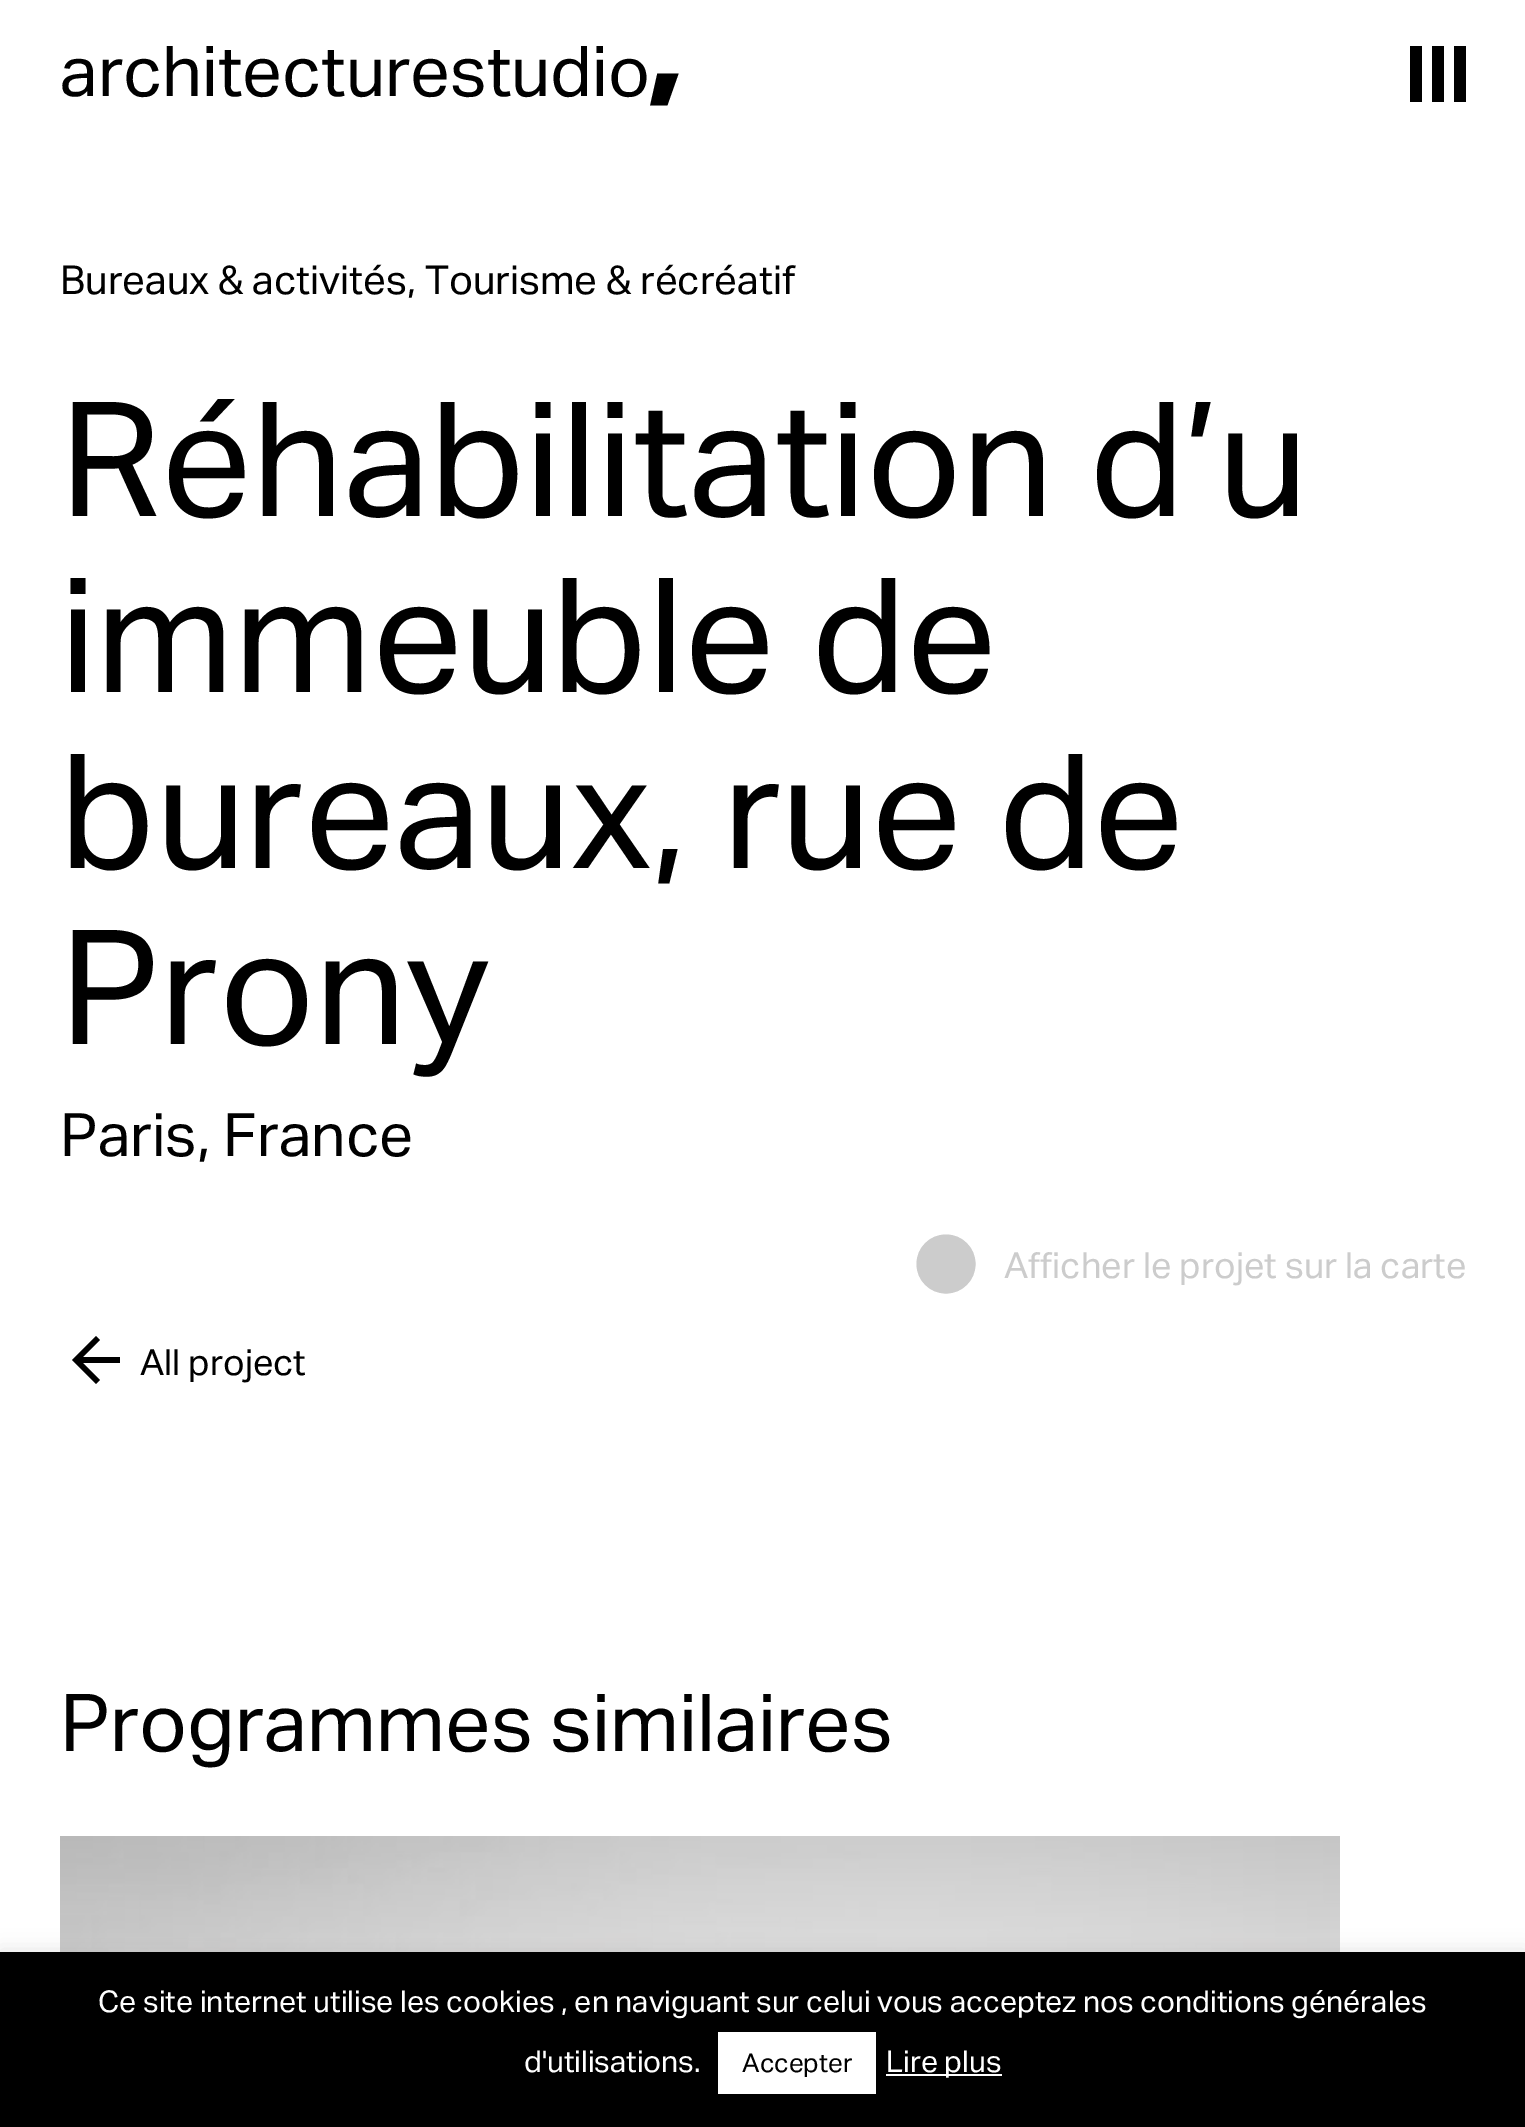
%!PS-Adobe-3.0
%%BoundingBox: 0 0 1525 2127
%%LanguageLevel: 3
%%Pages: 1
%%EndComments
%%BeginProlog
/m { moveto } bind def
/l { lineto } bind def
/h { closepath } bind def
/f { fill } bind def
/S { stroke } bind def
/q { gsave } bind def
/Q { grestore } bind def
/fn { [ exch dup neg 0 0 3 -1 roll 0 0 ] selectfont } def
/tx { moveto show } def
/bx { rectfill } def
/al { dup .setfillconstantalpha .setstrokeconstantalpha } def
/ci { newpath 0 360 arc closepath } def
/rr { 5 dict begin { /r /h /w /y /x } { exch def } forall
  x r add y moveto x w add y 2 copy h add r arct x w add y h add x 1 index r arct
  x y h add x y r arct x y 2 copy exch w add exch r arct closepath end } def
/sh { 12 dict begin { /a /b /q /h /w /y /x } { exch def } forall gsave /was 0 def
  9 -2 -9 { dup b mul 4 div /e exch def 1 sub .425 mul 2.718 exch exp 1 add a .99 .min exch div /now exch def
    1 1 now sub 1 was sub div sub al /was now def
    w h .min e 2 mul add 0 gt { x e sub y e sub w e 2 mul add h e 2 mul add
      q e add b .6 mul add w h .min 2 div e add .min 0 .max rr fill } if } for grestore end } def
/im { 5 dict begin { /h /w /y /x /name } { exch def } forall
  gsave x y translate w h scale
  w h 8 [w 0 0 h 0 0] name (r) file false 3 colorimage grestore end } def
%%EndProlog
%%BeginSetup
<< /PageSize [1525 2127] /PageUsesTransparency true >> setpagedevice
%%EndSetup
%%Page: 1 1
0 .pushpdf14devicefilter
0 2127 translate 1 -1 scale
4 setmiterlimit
1 setgray
0 0 1525 2127 bx
/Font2-Regular 70 fn
0 setgray
(architecturestudio,) 60 96 tx
1432 46 12 56 bx
1410 46 12 56 bx
1454 46 12 56 bx
/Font-Regular 40 fn
(Bureaux & activités, Tourisme & récréatif) 60 294 tx
/Font-Regular 160 fn
(Réhabilitation d’u) 60 516 tx
(immeuble de) 60 692 tx
(bureaux, rue de) 60 868 tx
(Prony) 60 1044 tx
/Font-Regular 60 fn
(Paris, France) 60 1156 tx
0.8 setgray
946 1264 29 ci q f Q
S
/Font-Regular 36 fn
(Afficher le projet sur la carte) 1004 1278 tx
0 setgray
120 1357 m 83 1357 l 100 1340 l 96 1336 l 72 1360 l 96 1384 l 100 1380 l 83 1363 l 120 1363 l h f
(All project) 140 1375 tx
/Font2-Regular 80 fn
(Programmes similaires) 60 1751 tx
(image0.raw) 60 1836 1280 116 im
0.675 0.671 0.671 setrgbcolor
0 1950 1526 176 0 10 0.3 sh
0 setgray
0 1952 1525 175 bx
/Font-Regular 30 fn
1 setgray
(Ce site internet utilise les cookies , en naviguant sur celui vous acceptez nos conditions générales) 98 2012 tx
(d'utilisations.) 524 2072 tx
718 2032 158 62 bx
/Font-Regular 26 fn
0 setgray
(Accepter) 742 2072 tx
1 setgray
886 2074 116 2 bx
/Font-Regular 30 fn
(Lire plus) 886 2072 tx
.poppdf14devicefilter showpage
%%EOF
